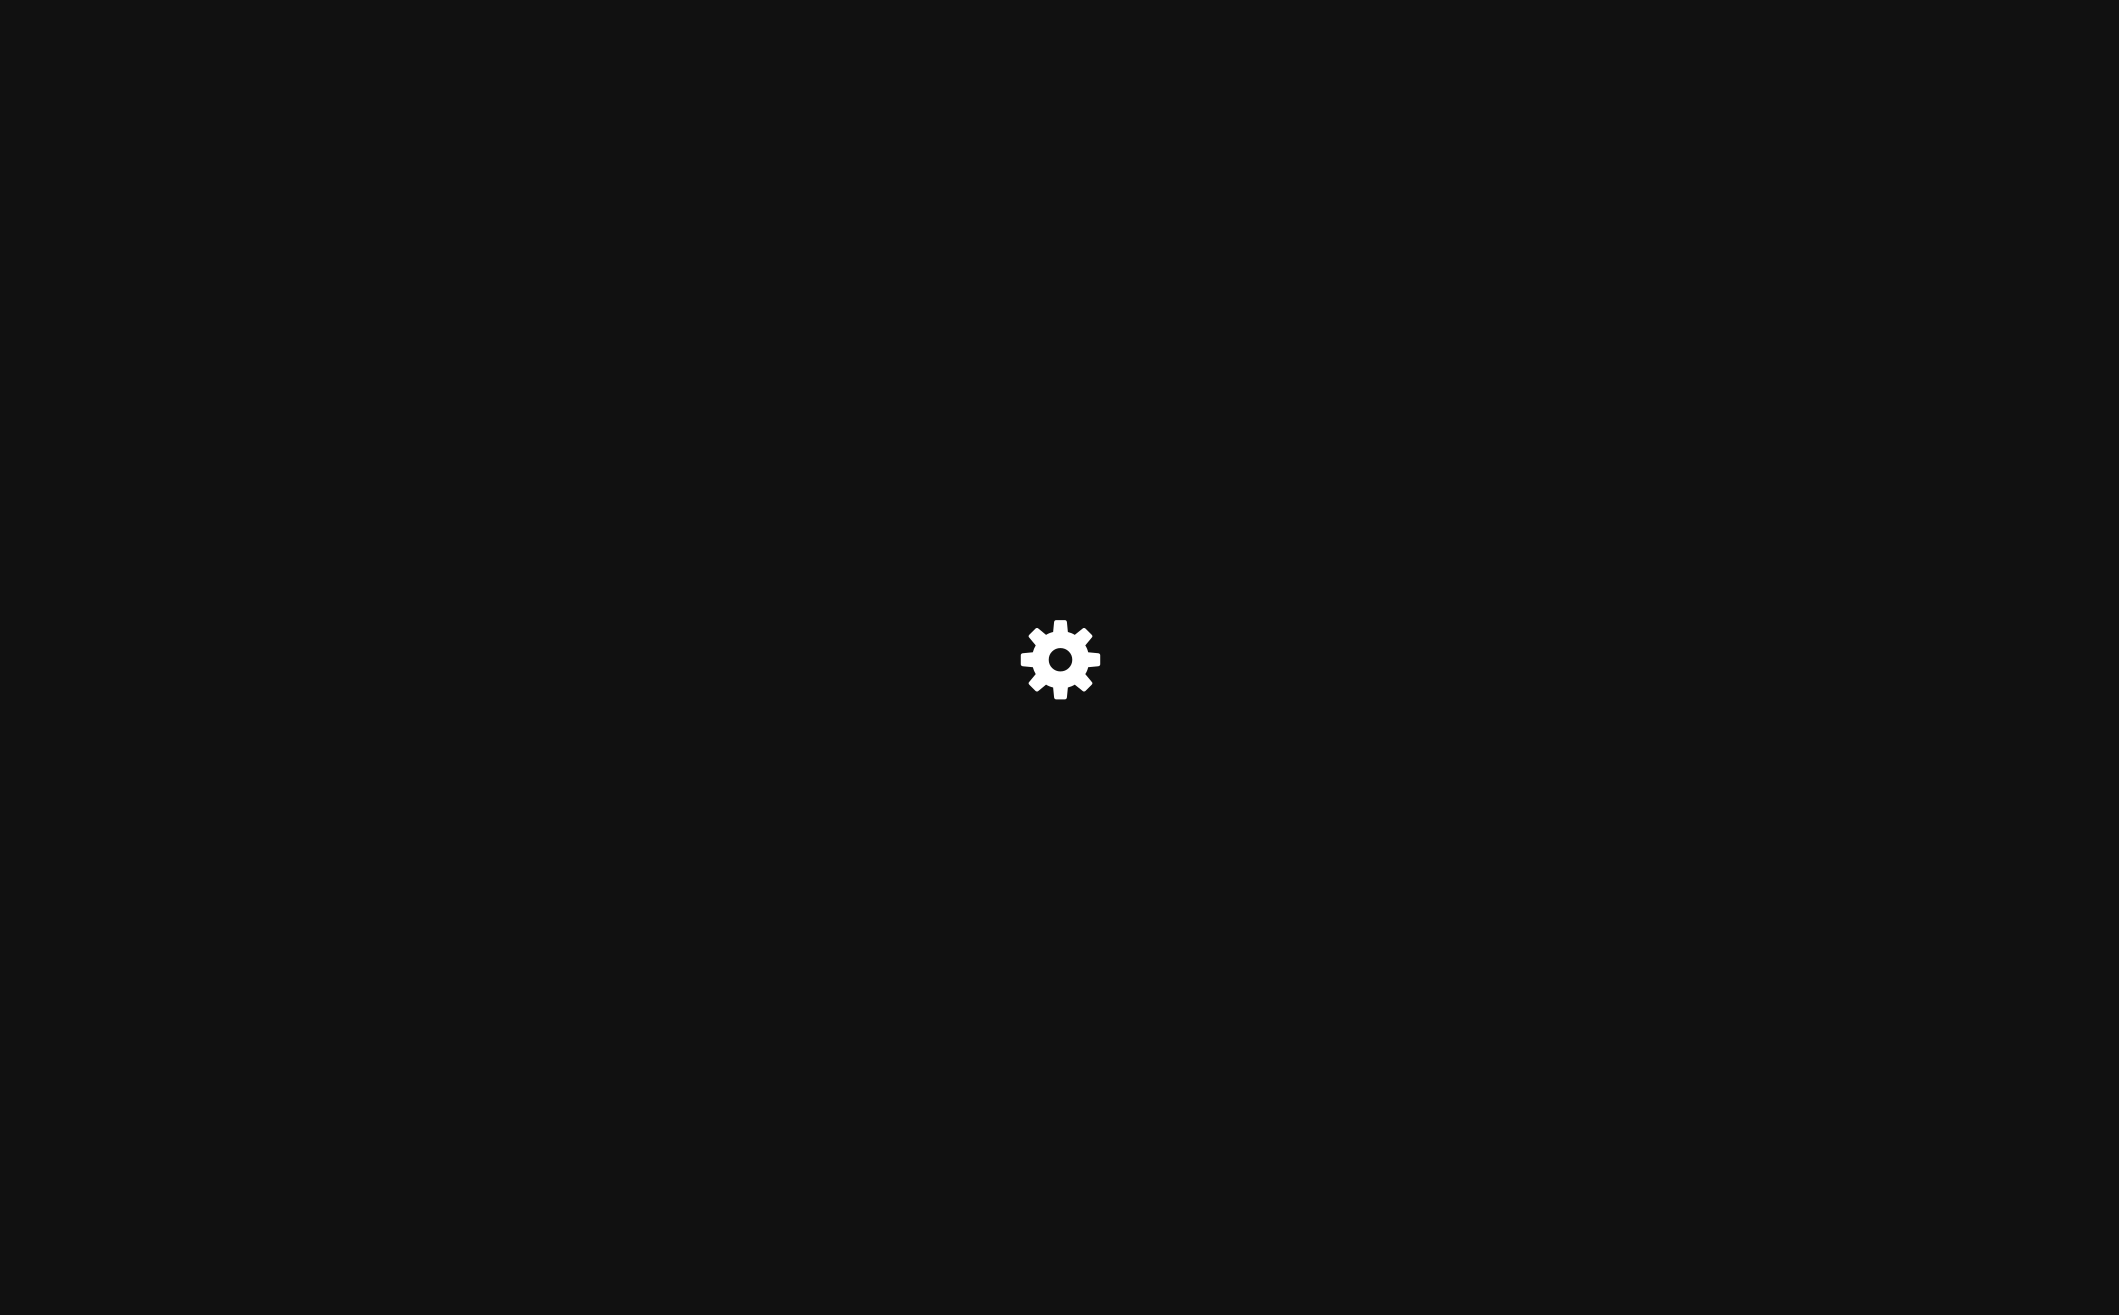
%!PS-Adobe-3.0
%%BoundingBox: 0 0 2119 1315
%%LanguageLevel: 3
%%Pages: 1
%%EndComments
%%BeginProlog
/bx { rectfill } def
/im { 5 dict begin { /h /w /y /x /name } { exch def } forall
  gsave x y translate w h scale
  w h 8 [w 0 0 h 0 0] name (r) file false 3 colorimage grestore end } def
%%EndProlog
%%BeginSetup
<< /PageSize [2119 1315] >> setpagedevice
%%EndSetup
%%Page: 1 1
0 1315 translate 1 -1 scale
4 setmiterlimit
0.067 setgray
0 0 2119 1315 bx
(image0.raw) 1020 620 81 80 im
showpage
%%EOF
